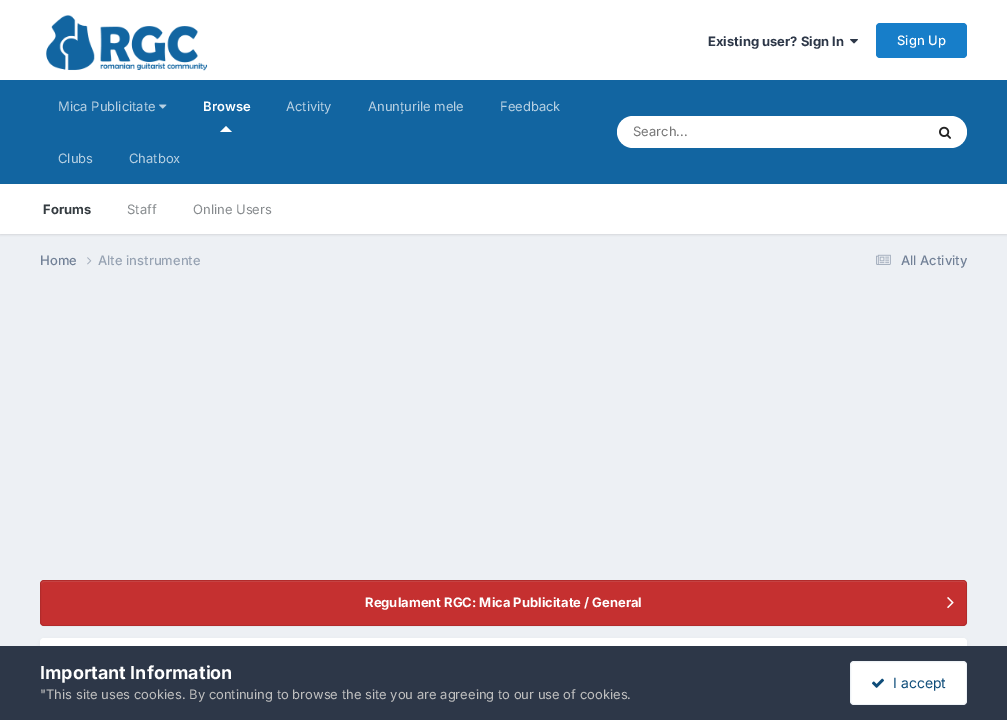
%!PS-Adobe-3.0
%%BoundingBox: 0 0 1007 720
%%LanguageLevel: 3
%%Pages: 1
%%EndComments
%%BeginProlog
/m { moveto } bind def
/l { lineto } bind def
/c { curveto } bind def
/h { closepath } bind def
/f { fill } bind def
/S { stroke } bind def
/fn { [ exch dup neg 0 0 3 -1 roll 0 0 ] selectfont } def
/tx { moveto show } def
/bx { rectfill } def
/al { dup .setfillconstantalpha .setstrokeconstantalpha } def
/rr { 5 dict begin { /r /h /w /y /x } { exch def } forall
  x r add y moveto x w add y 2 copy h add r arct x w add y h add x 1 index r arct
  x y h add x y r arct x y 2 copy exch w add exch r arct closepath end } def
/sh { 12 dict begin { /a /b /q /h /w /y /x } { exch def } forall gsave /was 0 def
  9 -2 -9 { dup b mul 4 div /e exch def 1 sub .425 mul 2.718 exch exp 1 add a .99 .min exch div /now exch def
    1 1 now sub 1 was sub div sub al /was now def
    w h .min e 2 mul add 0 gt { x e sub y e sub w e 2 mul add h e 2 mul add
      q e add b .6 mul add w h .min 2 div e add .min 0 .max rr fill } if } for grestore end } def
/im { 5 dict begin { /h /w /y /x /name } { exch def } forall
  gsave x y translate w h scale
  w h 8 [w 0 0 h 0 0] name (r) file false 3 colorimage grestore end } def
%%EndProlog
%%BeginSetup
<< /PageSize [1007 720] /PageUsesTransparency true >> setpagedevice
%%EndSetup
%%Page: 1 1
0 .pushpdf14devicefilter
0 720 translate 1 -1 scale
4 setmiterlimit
0.929 0.941 0.957 setrgbcolor
0 0 1007 720 bx
1 setgray
0 0 1007 80 bx
(image0.raw) 46 15 162 56 im
/Inter-Bold 13 fn
0.176 0.216 0.282 setrgbcolor
(Existing user? Sign In) 708 46 tx
(image1.raw) 850 39 8 5 im
0.09 0.494 0.788 setrgbcolor
876 23 91 35 4 rr f
/Inter-Medium 13 fn
1 setgray
(Sign Up) 897 45 tx
0.071 0.396 0.631 setrgbcolor
0 80 1007 104 bx
/Inter-SemiBold 13 fn
1 setgray
(Browse) 203 111 tx
232 132 m 220 132 l 226 126 l h f
0 setgray
0 185 1007 50 0 1 0.1 sh
1 setgray
0 184 1007 50 bx
/Inter-Bold 13 fn
0.208 0.235 0.255 setrgbcolor
(Forums) 43 214 tx
/Inter-Regular 13 fn
0.525 0.541 0.553 setrgbcolor
(Staff) 127 214 tx
(Online Users) 193 214 tx
0.722 0.82 0.89 setrgbcolor
(Mica Publicitate) 58 111 tx
(image2.raw) 159 104 8 5 im
(Activity) 286 111 tx
(Anunțurile mele) 368 111 tx
(Feedback) 500 111 tx
(Clubs) 58 163 tx
(Chatbox) 129 163 tx
1 setgray
617 116 350 32 16 rr f
0.459 setgray
(Search...) 633 136 tx
(image3.raw) 939 126 12 13 im
/Inter-Medium 13 fn
0.443 0.502 0.588 setrgbcolor
(Home) 40 265 tx
(image4.raw) 87 257 5 8 im
0.588 0.635 0.698 setrgbcolor
(Alte instrumente) 98 265 tx
(image5.raw) 876 254 15 11 im
0.443 0.502 0.588 setrgbcolor
(All Activity) 901 265 tx
0.773 0.188 0.188 setrgbcolor
40 580 927 46 4 rr f
0.796 0.271 0.271 setrgbcolor
44 582 m 963 582 l 965 582 966 583 966 585 c 966 583 965 581 963 581 c 44 581 l 42 581 41 583 41 585 c 41 583 42 582 44 582 c h f
0.1 al
0 setgray
40.5 580.5 926 45 3.5 rr S
/Inter-Bold 13 fn
1 al
1 setgray
(Regulament RGC: Mica Publicitate / General) 365 607 tx
(image6.raw) 947 597 7 12 im
0.176 0.216 0.282 setrgbcolor
41 641 925 74 3 2 0.1 sh
1 setgray
40 638 927 76 4 rr f
0.176 0.216 0.282 setrgbcolor
0 646 1007 74 bx
/Inter-Bold 18 fn
1 setgray
(Important Information) 40 679 tx
/Inter-Regular 13 fn
0.753 setgray
("This site uses cookies. By continuing to browse the site you are agreeing to our use of cookies.) 40 699 tx
1 setgray
850 661 117 44 4 rr f
0.07 al
0.055 0.298 0.475 setrgbcolor
850.5 661.5 116 43 3.5 rr S
1 al
(image7.raw) 872 678 12 10 im
/Inter-Regular 14 fn
(I accept) 893 688 tx
.poppdf14devicefilter showpage
%%EOF
